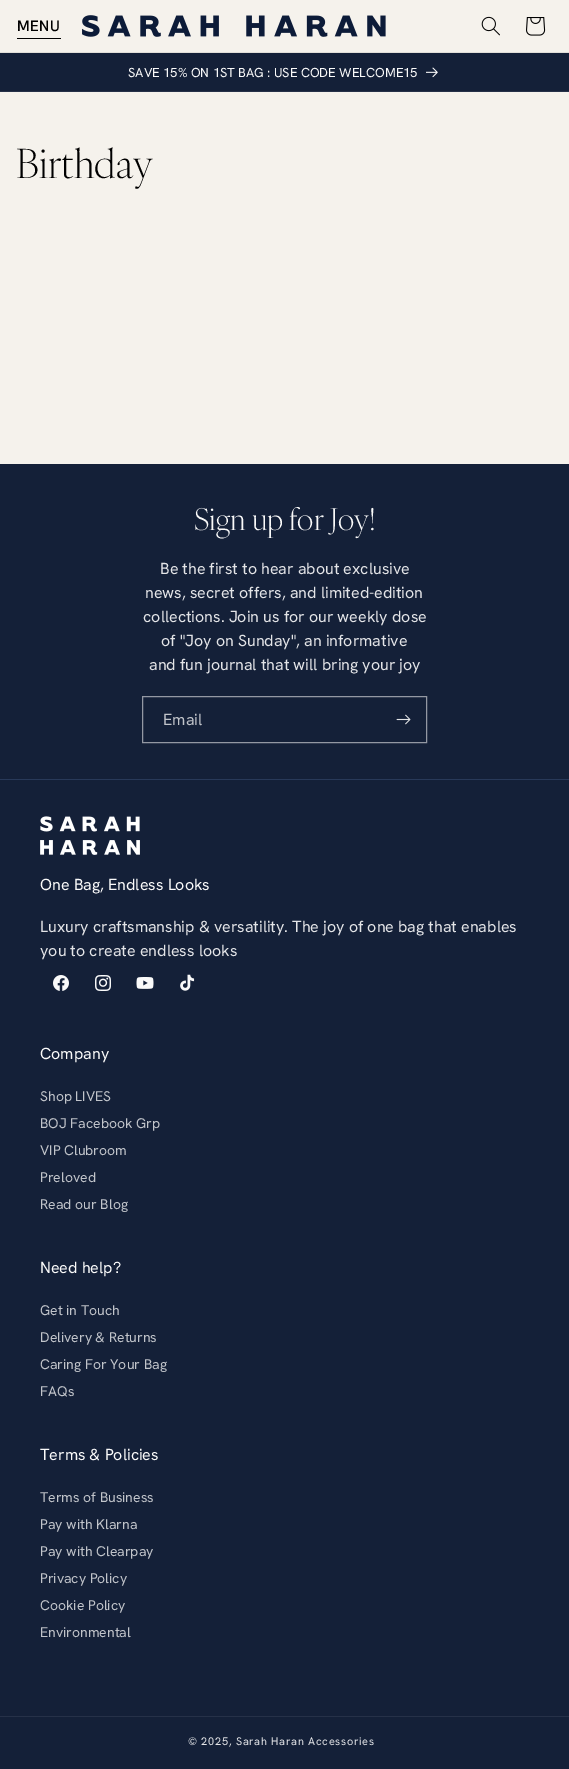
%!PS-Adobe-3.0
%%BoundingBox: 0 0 569 1769
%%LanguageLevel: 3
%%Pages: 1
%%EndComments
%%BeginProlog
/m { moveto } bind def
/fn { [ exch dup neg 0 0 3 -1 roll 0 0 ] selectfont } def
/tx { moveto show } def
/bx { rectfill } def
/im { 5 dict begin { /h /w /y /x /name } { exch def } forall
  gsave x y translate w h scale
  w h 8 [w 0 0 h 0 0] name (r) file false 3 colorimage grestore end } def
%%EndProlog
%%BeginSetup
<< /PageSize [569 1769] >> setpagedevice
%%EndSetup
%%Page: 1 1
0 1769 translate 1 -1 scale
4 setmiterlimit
0.961 0.949 0.925 setrgbcolor
0 0 569 1769 bx
0.882 0.875 0.851 setrgbcolor
0 52 569 1 bx
0 setgray
17 38 44 1 bx
/HankenGrotesk-Medium 15 fn
17 31 m 0.5 0 (MENU) ashow
(image0.raw) 82 15 304 22 im
(image1.raw) 481 16 19 20 im
(image2.raw) 526 17 20 19 im
0.078 0.125 0.22 setrgbcolor
0 53 569 38 bx
0.149 0.192 0.282 setrgbcolor
0 91 569 1 bx
/HankenGrotesk-Regular 13 fn
0.98 setgray
(SAVE 15% ON 1ST BAG : USE CODE WELCOME15) 128 77 tx
(image3.raw) 426 67 12 11 im
/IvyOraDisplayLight-Light 40 fn
0 setgray
(Birthday) 16 178 tx
0.078 0.125 0.22 setrgbcolor
0 464 569 315 bx
/IvyOraDisplayLight-Light 30 fn
0.98 setgray
(Sign up for Joy!) 194 530 tx
/HankenGrotesk-Regular 16 fn
0.89 0.894 0.906 setrgbcolor
(Be the first to hear about exclusive) 160 574 tx
(news, secret offers, and limited-edition) 145 598 tx
(collections. Join us for our weekly dose) 143 622 tx
(of "Joy on Sunday", an informative) 161 646 tx
(and fun journal that will bring your joy) 149 670 tx
0.576 0.596 0.639 setrgbcolor
142.5 696.5 284 46 rectstroke
0.757 0.769 0.792 setrgbcolor
(Email) 163 725 tx
(image4.raw) 396 714 15 11 im
0.157 0.224 0.349 setrgbcolor
0 779 569 1 bx
0.078 0.125 0.22 setrgbcolor
0 780 569 989 bx
(image5.raw) 40 816 100 39 im
0.98 setgray
(One Bag, Endless Looks) 40 890 tx
0.89 0.894 0.906 setrgbcolor
(Luxury craftsmanship & versatility. The joy of one bag that enables) 40 932 tx
(you to create endless looks) 40 956 tx
(image6.raw) 53 975 16 16 im
(image7.raw) 95 975 16 16 im
(image8.raw) 136 977 18 12 im
(image9.raw) 180 974 15 17 im
0.98 setgray
(Company) 40 1059 tx
/HankenGrotesk-Regular 14 fn
0.757 0.769 0.792 setrgbcolor
(Shop LIVES) 40 1101 tx
(BOJ Facebook Grp) 40 1128 tx
(VIP Clubroom) 40 1155 tx
(Preloved) 40 1182 tx
(Read our Blog) 40 1209 tx
/HankenGrotesk-Regular 16 fn
0.98 setgray
(Need help?) 40 1273 tx
/HankenGrotesk-Regular 14 fn
0.757 0.769 0.792 setrgbcolor
(Get in Touch) 40 1315 tx
(Delivery & Returns) 40 1342 tx
(Caring For Your Bag) 40 1369 tx
(FAQs) 40 1396 tx
/HankenGrotesk-Regular 16 fn
0.98 setgray
(Terms & Policies) 40 1460 tx
/HankenGrotesk-Regular 14 fn
0.757 0.769 0.792 setrgbcolor
(Terms of Business) 40 1502 tx
(Pay with Klarna) 40 1529 tx
(Pay with Clearpay) 40 1556 tx
(Privacy Policy) 40 1583 tx
(Cookie Policy) 40 1610 tx
(Environmental) 40 1637 tx
0.149 0.192 0.282 setrgbcolor
0 1716 569 1 bx
/HankenGrotesk-Regular 11 fn
0.89 0.894 0.906 setrgbcolor
188 1745 m 0.7 0 (© 2025, Sarah Haran Accessories) ashow
showpage
%%EOF
